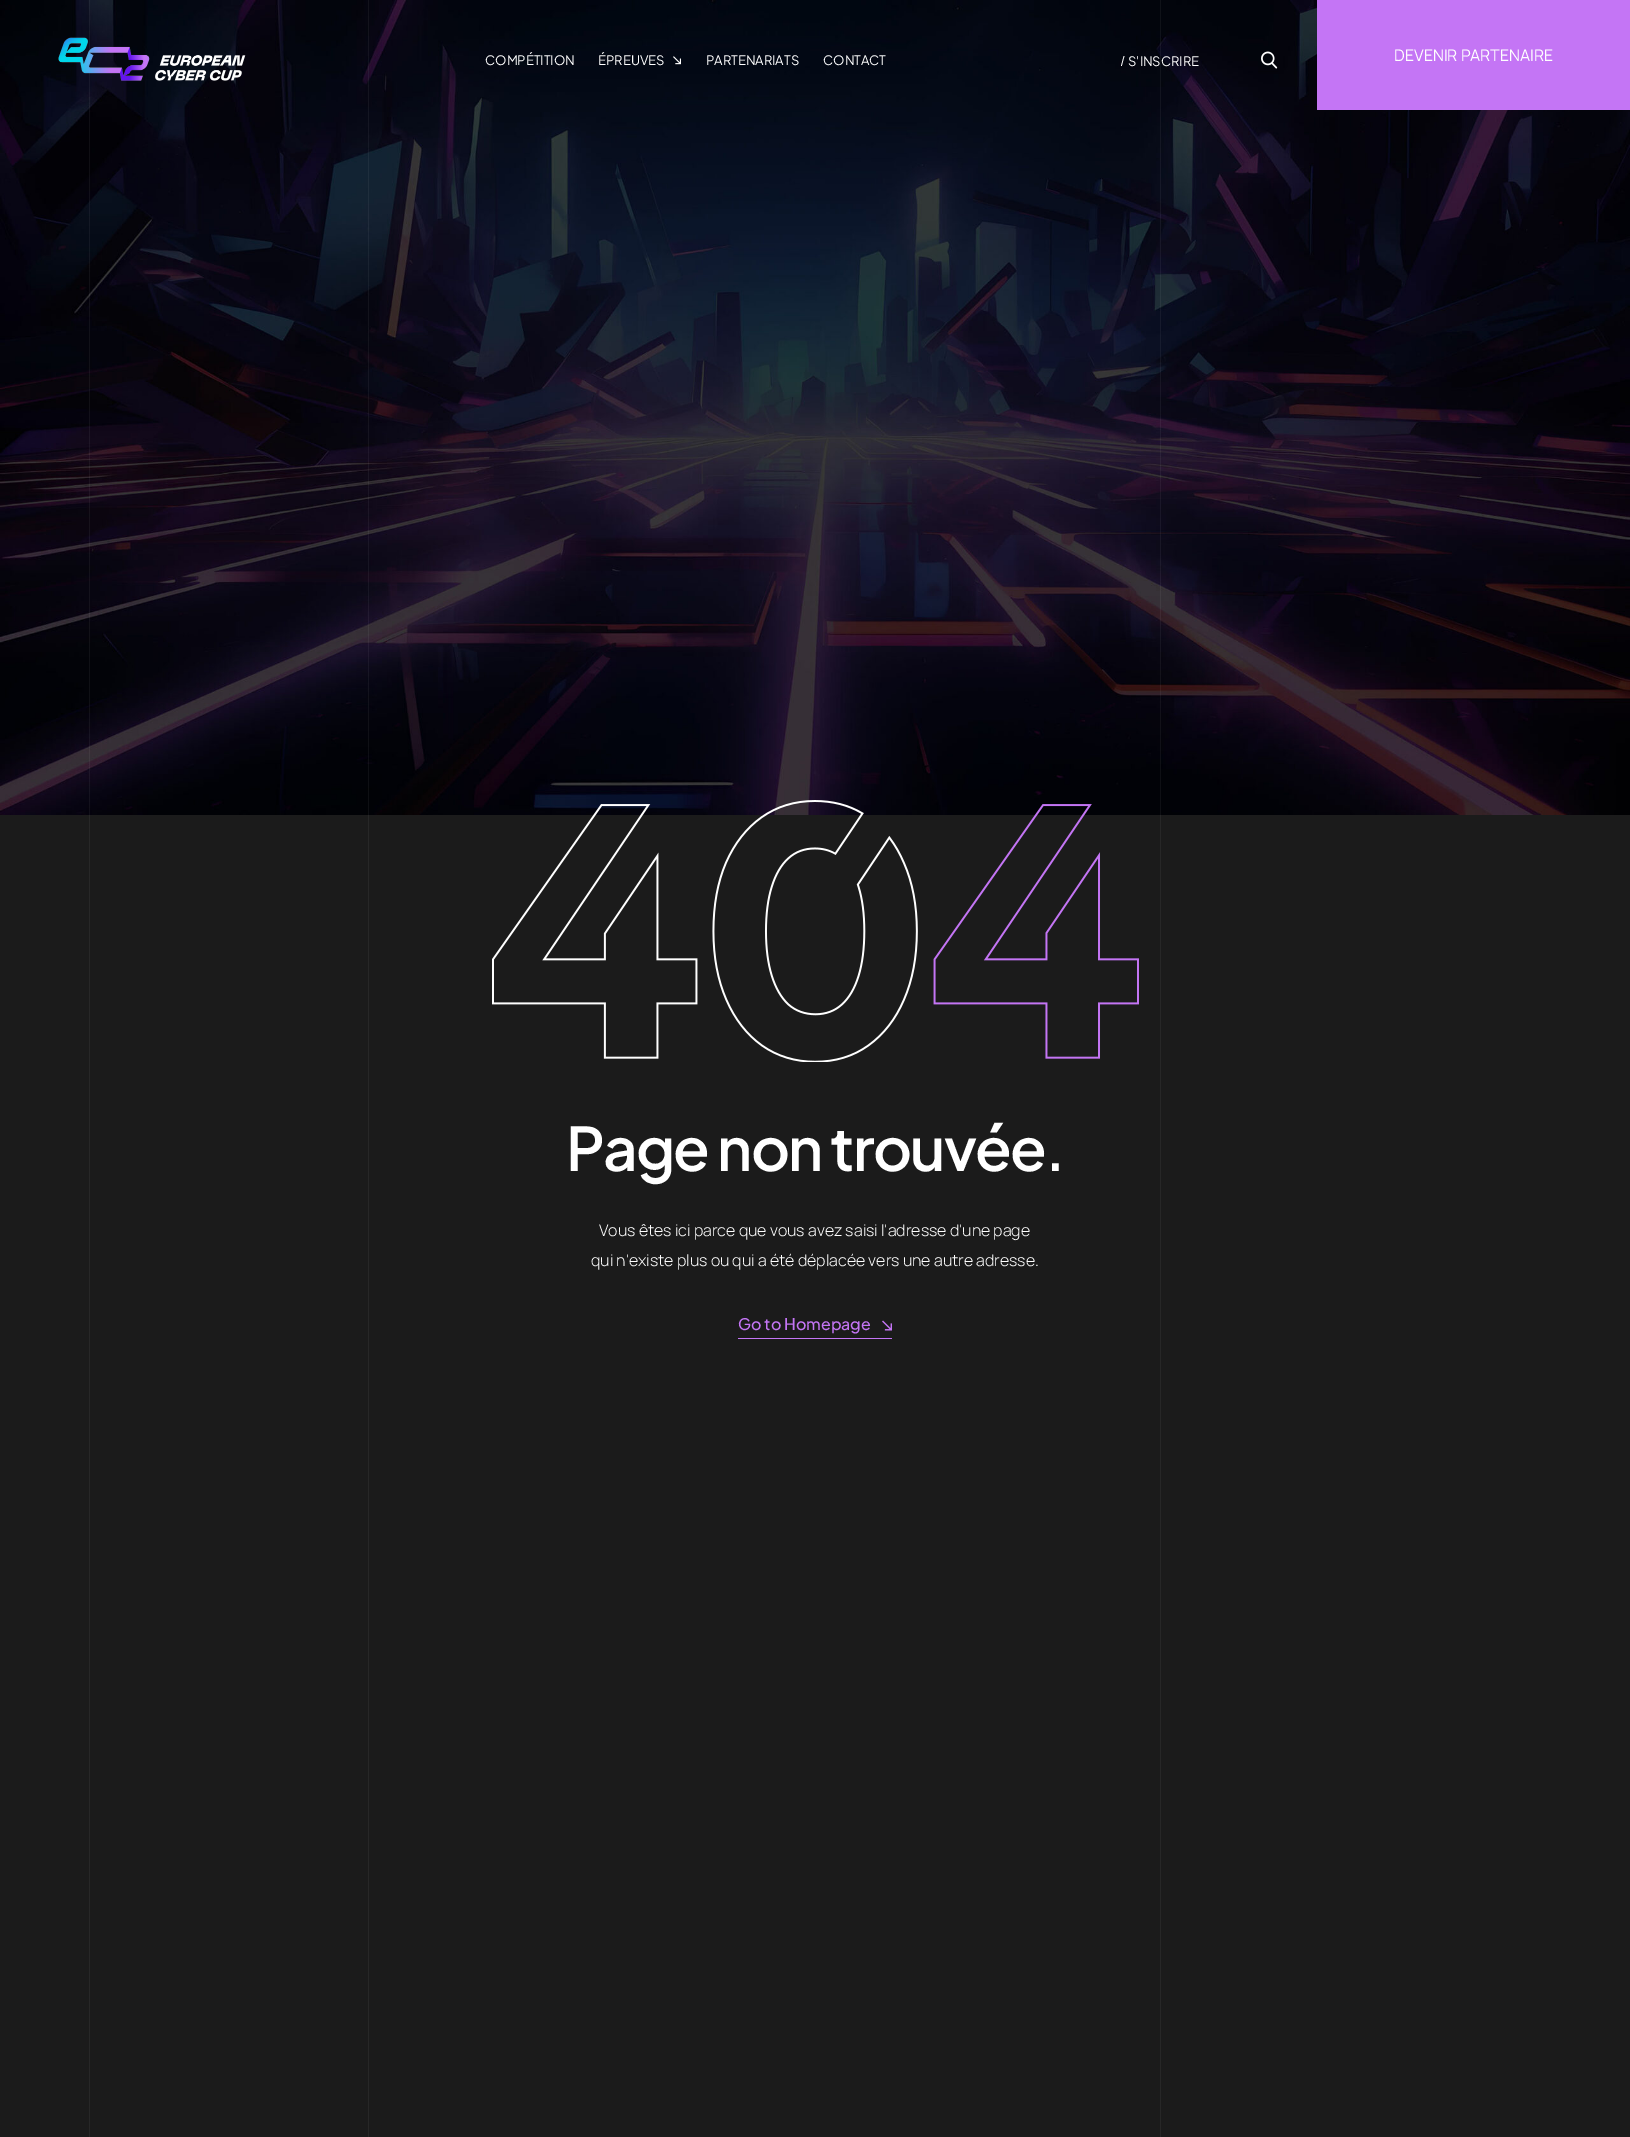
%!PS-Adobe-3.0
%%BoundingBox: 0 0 1630 2137
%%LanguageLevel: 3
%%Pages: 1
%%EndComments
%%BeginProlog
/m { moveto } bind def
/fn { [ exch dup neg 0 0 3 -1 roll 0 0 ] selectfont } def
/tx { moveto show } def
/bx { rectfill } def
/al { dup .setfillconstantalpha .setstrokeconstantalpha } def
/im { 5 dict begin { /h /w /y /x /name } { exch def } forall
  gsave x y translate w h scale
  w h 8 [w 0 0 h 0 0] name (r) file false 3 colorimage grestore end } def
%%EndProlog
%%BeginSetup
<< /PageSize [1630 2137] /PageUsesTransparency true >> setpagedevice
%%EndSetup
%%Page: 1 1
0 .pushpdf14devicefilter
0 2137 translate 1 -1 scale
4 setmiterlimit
0.106 setgray
0 0 1630 2137 bx
(image0.raw) 0 0 1630 815 im
0.05 al
1 setgray
89 0 1 2137 bx
368 0 1 2137 bx
1160 0 1 2137 bx
1 al
(image1.raw) 58 37 188 44 im
/PlusJakartaSans-Regular 13 fn
(COMPÉTITION) 485 65 tx
(ÉPREUVES) 598 65 tx
(image2.raw) 673 56 8 9 im
(PARTENARIATS) 706 65 tx
(CONTACT) 823 65 tx
/Manrope-Regular 14 fn
(/) 1120 66 tx
/PlusJakartaSans-Regular 13 fn
(S'INSCRIRE) 1128 66 tx
(image3.raw) 1261 51 17 18 im
0.769 0.459 0.961 setrgbcolor
1317 0 313 110 bx
/Manrope-Regular 16 fn
1 setgray
(DEVENIR PARTENAIRE) 1394 61 tx
(image4.raw) 492 800 647 262 im
/PlusJakartaSans-SemiBold 60 fn
566 1171 m -1.75 0 (Page non trouvée.) ashow
/Manrope-Light 16 fn
(Vous êtes ici parce que vous avez saisi l'adresse d'une page) 599 1236 tx
(qui n'existe plus ou qui a été déplacée vers une autre adresse.) 591 1266 tx
0.769 0.459 0.961 setrgbcolor
738 1338 154 1 bx
/PlusJakartaSans-Medium 16 fn
(Go to Homepage) 738 1330 tx
(image5.raw) 882 1320 10 11 im
.poppdf14devicefilter showpage
%%EOF
